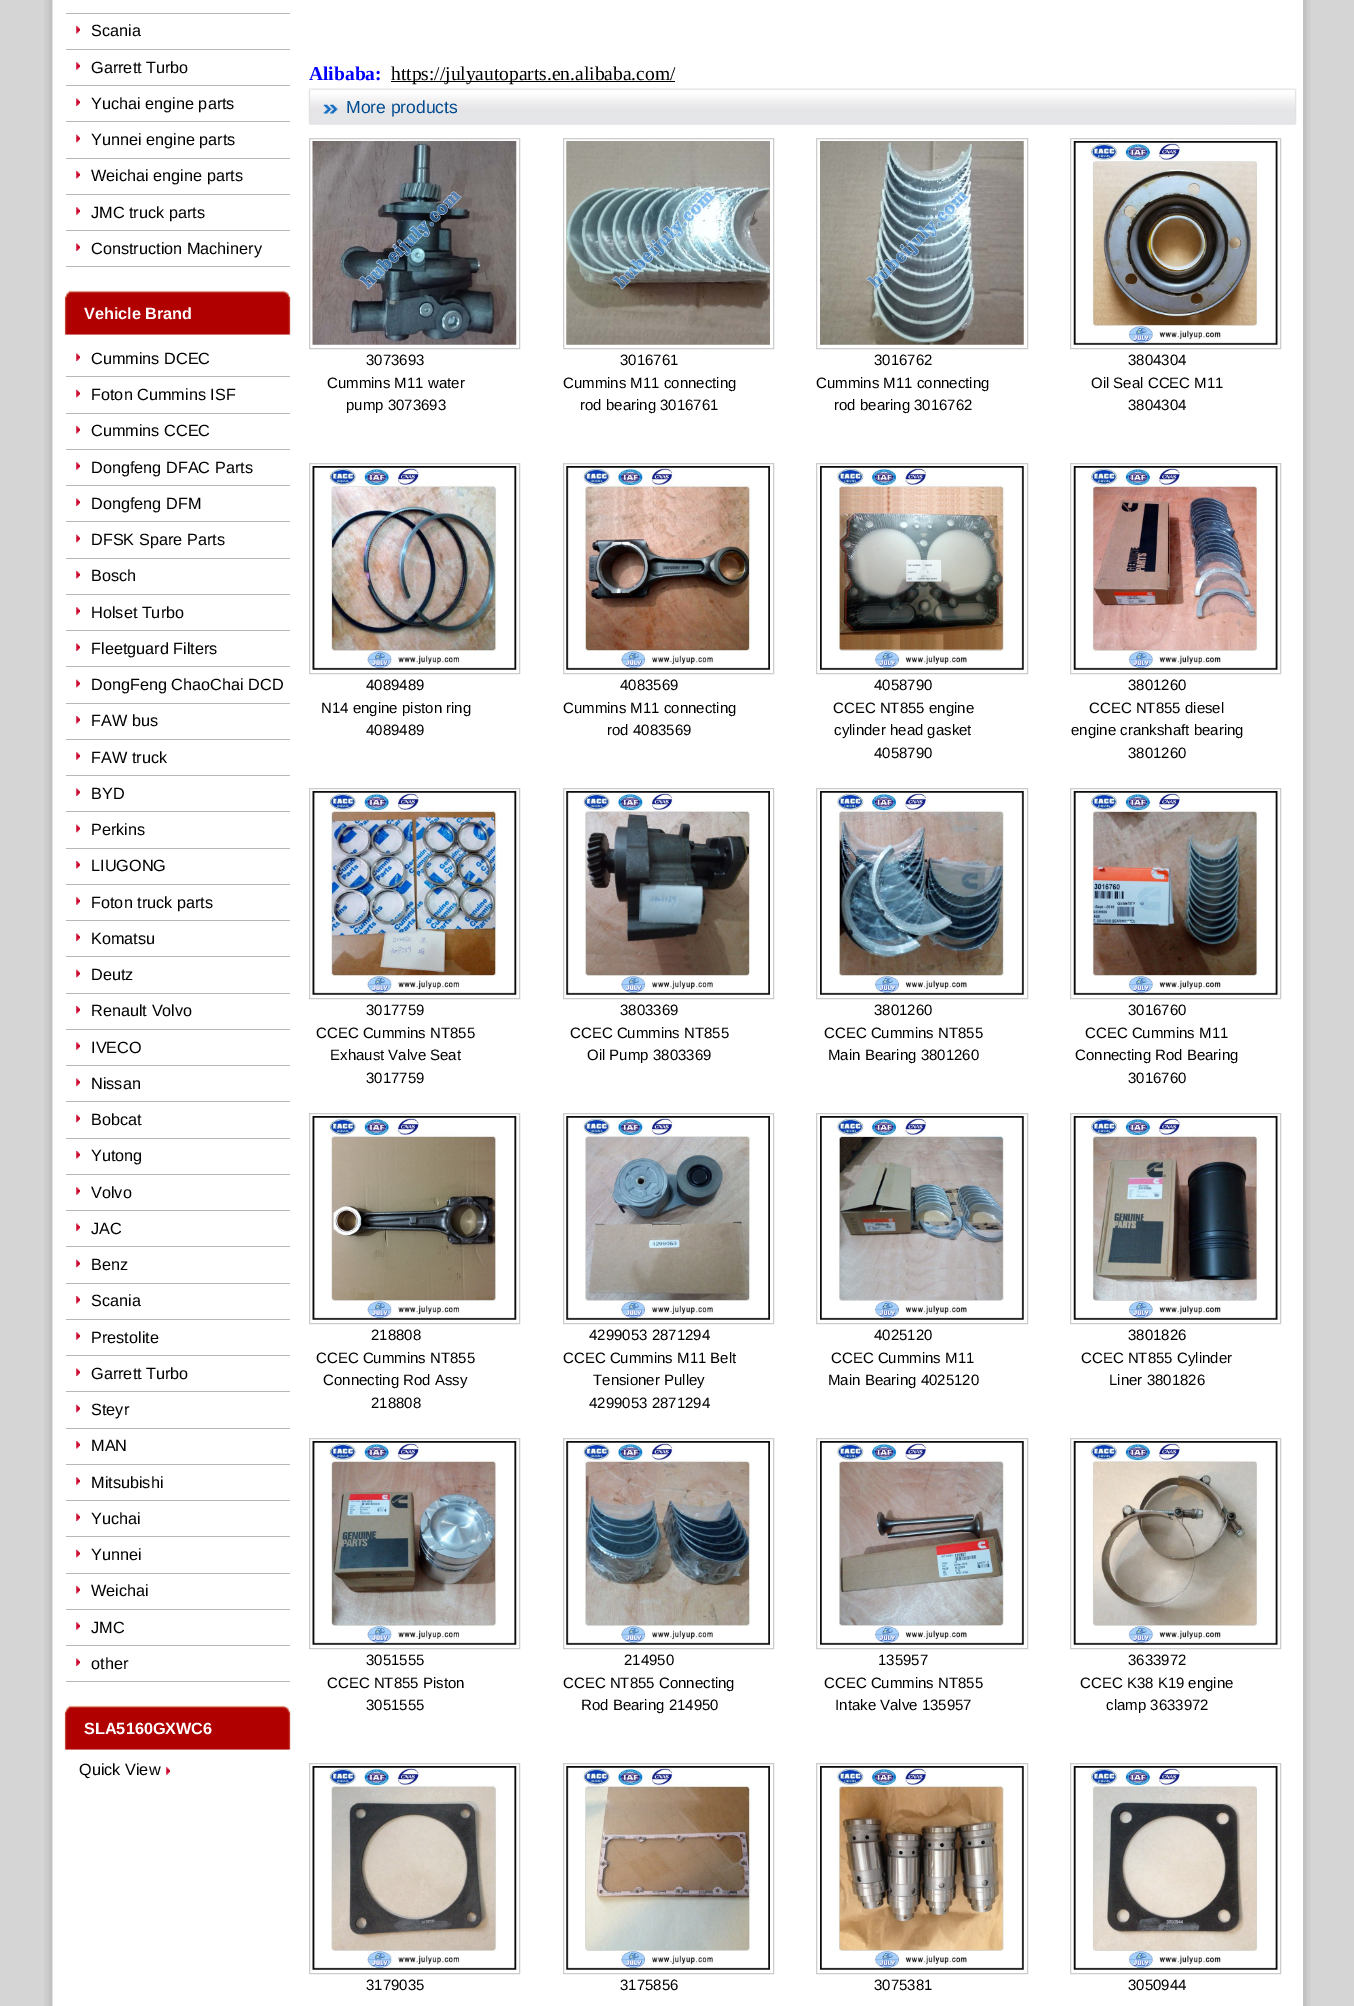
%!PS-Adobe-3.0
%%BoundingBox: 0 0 1354 2006
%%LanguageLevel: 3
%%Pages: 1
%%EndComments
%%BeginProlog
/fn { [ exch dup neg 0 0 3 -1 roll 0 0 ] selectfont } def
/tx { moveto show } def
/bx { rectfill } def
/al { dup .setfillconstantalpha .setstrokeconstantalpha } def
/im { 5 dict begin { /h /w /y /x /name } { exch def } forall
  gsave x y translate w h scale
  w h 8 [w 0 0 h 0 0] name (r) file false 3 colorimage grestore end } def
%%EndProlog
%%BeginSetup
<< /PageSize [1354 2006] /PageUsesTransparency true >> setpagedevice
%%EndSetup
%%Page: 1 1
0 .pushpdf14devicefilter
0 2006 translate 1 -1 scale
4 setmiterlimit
0.835 setgray
0 0 1354 2006 bx
(image0.raw) 44 0 1267 2006 im
1 setgray
53 0 1250 2006 bx
0.718 setgray
66 13 224 1 bx
(image1.raw) 76 26 4 8 im
66 49 224 1 bx
/LiberationSans-Regular 16.25 fn
0 setgray
(Scania) 91 36 tx
(image2.raw) 76 62 4 8 im
0.718 setgray
66 85 224 1 bx
0 setgray
(Garrett Turbo) 91 73 tx
(image3.raw) 76 98 4 8 im
0.718 setgray
66 121 224 1 bx
0 setgray
(Yuchai engine parts) 91 109 tx
(image4.raw) 76 134 4 9 im
0.718 setgray
66 158 224 1 bx
0 setgray
(Yunnei engine parts) 91 145 tx
(image1.raw) 76 171 4 8 im
0.718 setgray
66 194 224 1 bx
0 setgray
(Weichai engine parts) 91 181 tx
(image2.raw) 76 207 4 8 im
0.718 setgray
66 230 224 1 bx
0 setgray
(JMC truck parts) 91 218 tx
(image3.raw) 76 243 4 8 im
0.718 setgray
66 266 224 1 bx
0 setgray
(Construction Machinery) 91 254 tx
(image5.raw) 64 290 227 45 im
/LiberationSans-Bold 16.25 fn
1 setgray
(Vehicle Brand) 84 319 tx
0.25 al
65 334 226 1 bx
1 al
(image3.raw) 76 353 4 8 im
0.718 setgray
66 376 224 1 bx
/LiberationSans-Regular 16.25 fn
0 setgray
(Cummins DCEC) 91 364 tx
(image4.raw) 76 389 4 9 im
0.718 setgray
66 413 224 1 bx
0 setgray
(Foton Cummins ISF) 91 400 tx
(image1.raw) 76 426 4 8 im
0.718 setgray
66 449 224 1 bx
0 setgray
(Cummins CCEC) 91 436 tx
(image2.raw) 76 462 4 8 im
0.718 setgray
66 485 224 1 bx
0 setgray
(Dongfeng DFAC Parts) 91 473 tx
(image3.raw) 76 498 4 8 im
0.718 setgray
66 521 224 1 bx
0 setgray
(Dongfeng DFM) 91 509 tx
(image4.raw) 76 534 4 9 im
0.718 setgray
66 558 224 1 bx
0 setgray
(DFSK Spare Parts) 91 545 tx
(image1.raw) 76 571 4 8 im
0.718 setgray
66 594 224 1 bx
0 setgray
(Bosch) 91 581 tx
(image2.raw) 76 607 4 8 im
0.718 setgray
66 630 224 1 bx
0 setgray
(Holset Turbo) 91 618 tx
(image3.raw) 76 643 4 8 im
0.718 setgray
66 666 224 1 bx
0 setgray
(Fleetguard Filters) 91 654 tx
(image4.raw) 76 679 4 9 im
0.718 setgray
66 703 224 1 bx
0 setgray
(DongFeng ChaoChai DCD) 91 690 tx
(image1.raw) 76 716 4 8 im
0.718 setgray
66 739 224 1 bx
0 setgray
(FAW bus) 91 726 tx
(image2.raw) 76 752 4 8 im
0.718 setgray
66 775 224 1 bx
0 setgray
(FAW truck) 91 763 tx
(image3.raw) 76 788 4 8 im
0.718 setgray
66 811 224 1 bx
0 setgray
(BYD) 91 799 tx
(image4.raw) 76 824 4 9 im
0.718 setgray
66 848 224 1 bx
0 setgray
(Perkins) 91 835 tx
(image1.raw) 76 861 4 8 im
0.718 setgray
66 884 224 1 bx
0 setgray
(LIUGONG) 91 871 tx
(image2.raw) 76 897 4 8 im
0.718 setgray
66 920 224 1 bx
0 setgray
(Foton truck parts) 91 908 tx
(image3.raw) 76 933 4 8 im
0.718 setgray
66 956 224 1 bx
0 setgray
(Komatsu) 91 944 tx
(image4.raw) 76 969 4 9 im
0.718 setgray
66 993 224 1 bx
0 setgray
(Deutz) 91 980 tx
(image1.raw) 76 1006 4 8 im
0.718 setgray
66 1029 224 1 bx
0 setgray
(Renault Volvo) 91 1016 tx
(image2.raw) 76 1042 4 8 im
0.718 setgray
66 1065 224 1 bx
0 setgray
(IVECO) 91 1053 tx
(image3.raw) 76 1078 4 8 im
0.718 setgray
66 1101 224 1 bx
0 setgray
(Nissan) 91 1089 tx
(image4.raw) 76 1114 4 9 im
0.718 setgray
66 1138 224 1 bx
0 setgray
(Bobcat) 91 1125 tx
(image1.raw) 76 1151 4 8 im
0.718 setgray
66 1174 224 1 bx
0 setgray
(Yutong) 91 1161 tx
(image6.raw) 76 1187 4 8 im
0.718 setgray
66 1210 224 1 bx
0 setgray
(Volvo) 91 1198 tx
(image3.raw) 76 1223 4 8 im
0.718 setgray
66 1246 224 1 bx
0 setgray
(JAC) 91 1234 tx
(image4.raw) 76 1259 4 9 im
0.718 setgray
66 1283 224 1 bx
0 setgray
(Benz) 91 1270 tx
(image1.raw) 76 1296 4 8 im
0.718 setgray
66 1319 224 1 bx
0 setgray
(Scania) 91 1306 tx
(image2.raw) 76 1332 4 8 im
0.718 setgray
66 1355 224 1 bx
0 setgray
(Prestolite) 91 1343 tx
(image3.raw) 76 1368 4 8 im
0.718 setgray
66 1391 224 1 bx
0 setgray
(Garrett Turbo) 91 1379 tx
(image4.raw) 76 1404 4 9 im
0.718 setgray
66 1428 224 1 bx
0 setgray
(Steyr) 91 1415 tx
(image1.raw) 76 1441 4 8 im
0.718 setgray
66 1464 224 1 bx
0 setgray
(MAN) 91 1451 tx
(image2.raw) 76 1477 4 8 im
0.718 setgray
66 1500 224 1 bx
0 setgray
(Mitsubishi) 91 1488 tx
(image3.raw) 76 1513 4 8 im
0.718 setgray
66 1536 224 1 bx
0 setgray
(Yuchai) 91 1524 tx
(image4.raw) 76 1549 4 9 im
0.718 setgray
66 1573 224 1 bx
0 setgray
(Yunnei) 91 1560 tx
(image1.raw) 76 1586 4 8 im
0.718 setgray
66 1609 224 1 bx
0 setgray
(Weichai) 91 1596 tx
(image2.raw) 76 1622 4 8 im
0.718 setgray
66 1645 224 1 bx
0 setgray
(JMC) 91 1633 tx
(image3.raw) 76 1658 4 8 im
0.718 setgray
66 1681 224 1 bx
0 setgray
(other) 91 1669 tx
(image5.raw) 64 1705 227 45 im
/LiberationSans-Bold 16.25 fn
1 setgray
(SLA5160GXWC6) 84 1734 tx
0.25 al
65 1749 226 1 bx
1 al
(image2.raw) 166 1767 4 8 im
/LiberationSans-Regular 16.25 fn
0 setgray
(Quick View) 79 1775 tx
/LiberationSerif-Bold 19.5 fn
0 0 1 setrgbcolor
(Alibaba:) 309 80 tx
0 setgray
391 81 284 1 bx
/LiberationSerif-Regular 19.5 fn
(https://julyautoparts.en.alibaba.com/) 391 80 tx
(image7.raw) 308 88 989 37 im
/LiberationSans-Regular 17.5 fn
0 0.29 0.561 setrgbcolor
(More products) 346 113 tx
0.8 setgray
309.5 138.5 210 210 rectstroke
(image8.raw) 312 141 205 204 im
/LiberationSans-Regular 15 fn
0 setgray
(3073693) 366 365 tx
(Cummins M11 water) 327 388 tx
(pump 3073693) 346 410 tx
0.8 setgray
563.5 138.5 210 210 rectstroke
(image9.raw) 566 141 204 204 im
0 setgray
(3016761) 620 365 tx
(Cummins M11 connecting) 563 388 tx
(rod bearing 3016761) 580 410 tx
0.8 setgray
816.5 138.5 211 210 rectstroke
(image10.raw) 820 141 204 204 im
0 setgray
(3016762) 874 365 tx
(Cummins M11 connecting) 816 388 tx
(rod bearing 3016762) 834 410 tx
0.8 setgray
1070.5 138.5 210 210 rectstroke
(image11.raw) 1073 141 205 204 im
0 setgray
(3804304) 1128 365 tx
(Oil Seal CCEC M11) 1091 388 tx
(3804304) 1128 410 tx
0.8 setgray
309.5 463.5 210 210 rectstroke
(image12.raw) 312 466 205 204 im
0 setgray
(4089489) 366 690 tx
(N14 engine piston ring) 321 713 tx
(4089489) 366 735 tx
0.8 setgray
563.5 463.5 210 210 rectstroke
(image13.raw) 566 466 204 204 im
0 setgray
(4083569) 620 690 tx
(Cummins M11 connecting) 563 713 tx
(rod 4083569) 607 735 tx
0.8 setgray
816.5 463.5 211 210 rectstroke
(image14.raw) 820 466 204 204 im
0 setgray
(4058790) 874 690 tx
(CCEC NT855 engine) 833 713 tx
(cylinder head gasket) 834 735 tx
(4058790) 874 758 tx
0.8 setgray
1070.5 463.5 210 210 rectstroke
(image15.raw) 1073 466 205 204 im
0 setgray
(3801260) 1128 690 tx
(CCEC NT855 diesel) 1089 713 tx
(engine crankshaft bearing) 1071 735 tx
(3801260) 1128 758 tx
0.8 setgray
309.5 788.5 210 210 rectstroke
(image16.raw) 312 791 205 204 im
0 setgray
(3017759) 366 1015 tx
(CCEC Cummins NT855) 316 1038 tx
(Exhaust Valve Seat) 330 1060 tx
(3017759) 366 1083 tx
0.8 setgray
563.5 788.5 210 210 rectstroke
(image17.raw) 566 791 204 204 im
0 setgray
(3803369) 620 1015 tx
(CCEC Cummins NT855) 570 1038 tx
(Oil Pump 3803369) 587 1060 tx
0.8 setgray
816.5 788.5 211 210 rectstroke
(image18.raw) 820 791 204 204 im
0 setgray
(3801260) 874 1015 tx
(CCEC Cummins NT855) 824 1038 tx
(Main Bearing 3801260) 828 1060 tx
0.8 setgray
1070.5 788.5 210 210 rectstroke
(image19.raw) 1073 791 205 204 im
0 setgray
(3016760) 1128 1015 tx
(CCEC Cummins M11) 1085 1038 tx
(Connecting Rod Bearing) 1075 1060 tx
(3016760) 1128 1083 tx
0.8 setgray
309.5 1113.5 210 210 rectstroke
(image20.raw) 312 1116 205 204 im
0 setgray
(218808) 371 1340 tx
(CCEC Cummins NT855) 316 1363 tx
(Connecting Rod Assy) 323 1385 tx
(218808) 371 1408 tx
0.8 setgray
563.5 1113.5 210 210 rectstroke
(image21.raw) 566 1116 204 204 im
0 setgray
(4299053 2871294) 589 1340 tx
(CCEC Cummins M11 Belt) 563 1363 tx
(Tensioner Pulley) 593 1385 tx
(4299053 2871294) 589 1408 tx
0.8 setgray
816.5 1113.5 211 210 rectstroke
(image22.raw) 820 1116 204 204 im
0 setgray
(4025120) 874 1340 tx
(CCEC Cummins M11) 831 1363 tx
(Main Bearing 4025120) 828 1385 tx
0.8 setgray
1070.5 1113.5 210 210 rectstroke
(image23.raw) 1073 1116 205 204 im
0 setgray
(3801826) 1128 1340 tx
(CCEC NT855 Cylinder) 1081 1363 tx
(Liner 3801826) 1109 1385 tx
0.8 setgray
309.5 1438.5 210 210 rectstroke
(image24.raw) 312 1441 205 204 im
0 setgray
(3051555) 366 1665 tx
(CCEC NT855 Piston) 327 1688 tx
(3051555) 366 1710 tx
0.8 setgray
563.5 1438.5 210 210 rectstroke
(image25.raw) 566 1441 204 204 im
0 setgray
(214950) 624 1665 tx
(CCEC NT855 Connecting) 563 1688 tx
(Rod Bearing 214950) 581 1710 tx
0.8 setgray
816.5 1438.5 211 210 rectstroke
(image26.raw) 820 1441 204 204 im
0 setgray
(135957) 878 1665 tx
(CCEC Cummins NT855) 824 1688 tx
(Intake Valve 135957) 835 1710 tx
0.8 setgray
1070.5 1438.5 210 210 rectstroke
(image27.raw) 1073 1441 205 204 im
0 setgray
(3633972) 1128 1665 tx
(CCEC K38 K19 engine) 1080 1688 tx
(clamp 3633972) 1106 1710 tx
0.8 setgray
309.5 1763.5 210 210 rectstroke
(image28.raw) 312 1766 205 204 im
0 setgray
(3179035) 366 1990 tx
0.8 setgray
563.5 1763.5 210 210 rectstroke
(image29.raw) 566 1766 204 204 im
0 setgray
(3175856) 620 1990 tx
0.8 setgray
816.5 1763.5 211 210 rectstroke
(image30.raw) 820 1766 204 204 im
0 setgray
(3075381) 874 1990 tx
0.8 setgray
1070.5 1763.5 210 210 rectstroke
(image31.raw) 1073 1766 205 204 im
0 setgray
(3050944) 1128 1990 tx
.poppdf14devicefilter showpage
%%EOF
